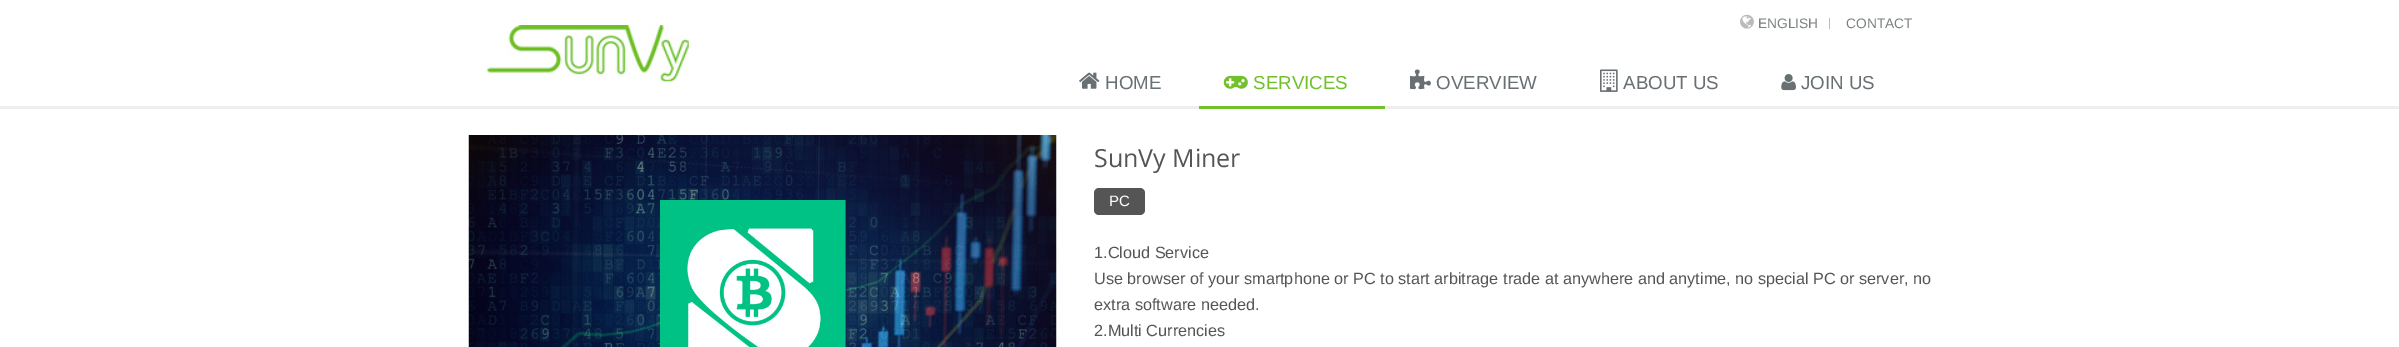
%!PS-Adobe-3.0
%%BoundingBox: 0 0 2399 347
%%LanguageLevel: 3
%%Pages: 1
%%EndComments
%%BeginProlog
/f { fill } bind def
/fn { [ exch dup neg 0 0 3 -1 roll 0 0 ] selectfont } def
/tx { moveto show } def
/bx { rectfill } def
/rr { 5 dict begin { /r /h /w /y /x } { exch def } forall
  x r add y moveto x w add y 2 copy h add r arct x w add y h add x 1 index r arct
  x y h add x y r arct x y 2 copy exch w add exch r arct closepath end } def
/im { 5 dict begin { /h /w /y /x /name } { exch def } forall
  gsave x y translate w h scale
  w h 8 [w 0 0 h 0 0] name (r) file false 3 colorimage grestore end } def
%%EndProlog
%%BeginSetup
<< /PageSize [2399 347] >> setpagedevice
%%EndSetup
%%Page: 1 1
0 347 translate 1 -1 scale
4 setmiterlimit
1 setgray
0 0 2399 347 bx
0.933 setgray
0 106 2399 3 bx
(image0.raw) 1740 14 14 15 im
/LiberationSans-Regular 13.75 fn
0.486 0.502 0.51 setrgbcolor
(ENGLISH) 1758 28 tx
0.733 setgray
1829 18 1 11 bx
0.486 0.502 0.51 setrgbcolor
(CONTACT) 1846 28 tx
(image1.raw) 487 25 202 57 im
(image2.raw) 1079 72 21 17 im
/LiberationSans-Regular 18.75 fn
0.408 0.439 0.455 setrgbcolor
(HOME) 1105 89 tx
0.447 0.753 0.173 setrgbcolor
1199 106 186 3 bx
(image3.raw) 1223 75 25 14 im
(SERVICES) 1253 89 tx
(image4.raw) 1410 69 21 21 im
0.408 0.439 0.455 setrgbcolor
(OVERVIEW) 1436 89 tx
(image5.raw) 1600 69 18 23 im
(ABOUT US) 1623 89 tx
(image6.raw) 1781 74 15 17 im
(JOIN US) 1801 89 tx
(image7.raw) 468 135 589 212 im
/OpenSans-Regular 25 fn
0.333 setgray
(SunVy Miner) 1094 167 tx
1094 188 51 27 5 rr f
/LiberationSans-Regular 15 fn
1 setgray
(PC) 1109 206 tx
/LiberationSans-Regular 16.25 fn
0.333 setgray
(1.Cloud Service) 1094 258 tx
(Use browser of your smartphone or PC to start arbitrage trade at anywhere and anytime, no special PC or server, no) 1094 284 tx
(extra software needed.) 1094 310 tx
(2.Multi Currencies) 1094 336 tx
showpage
%%EOF
